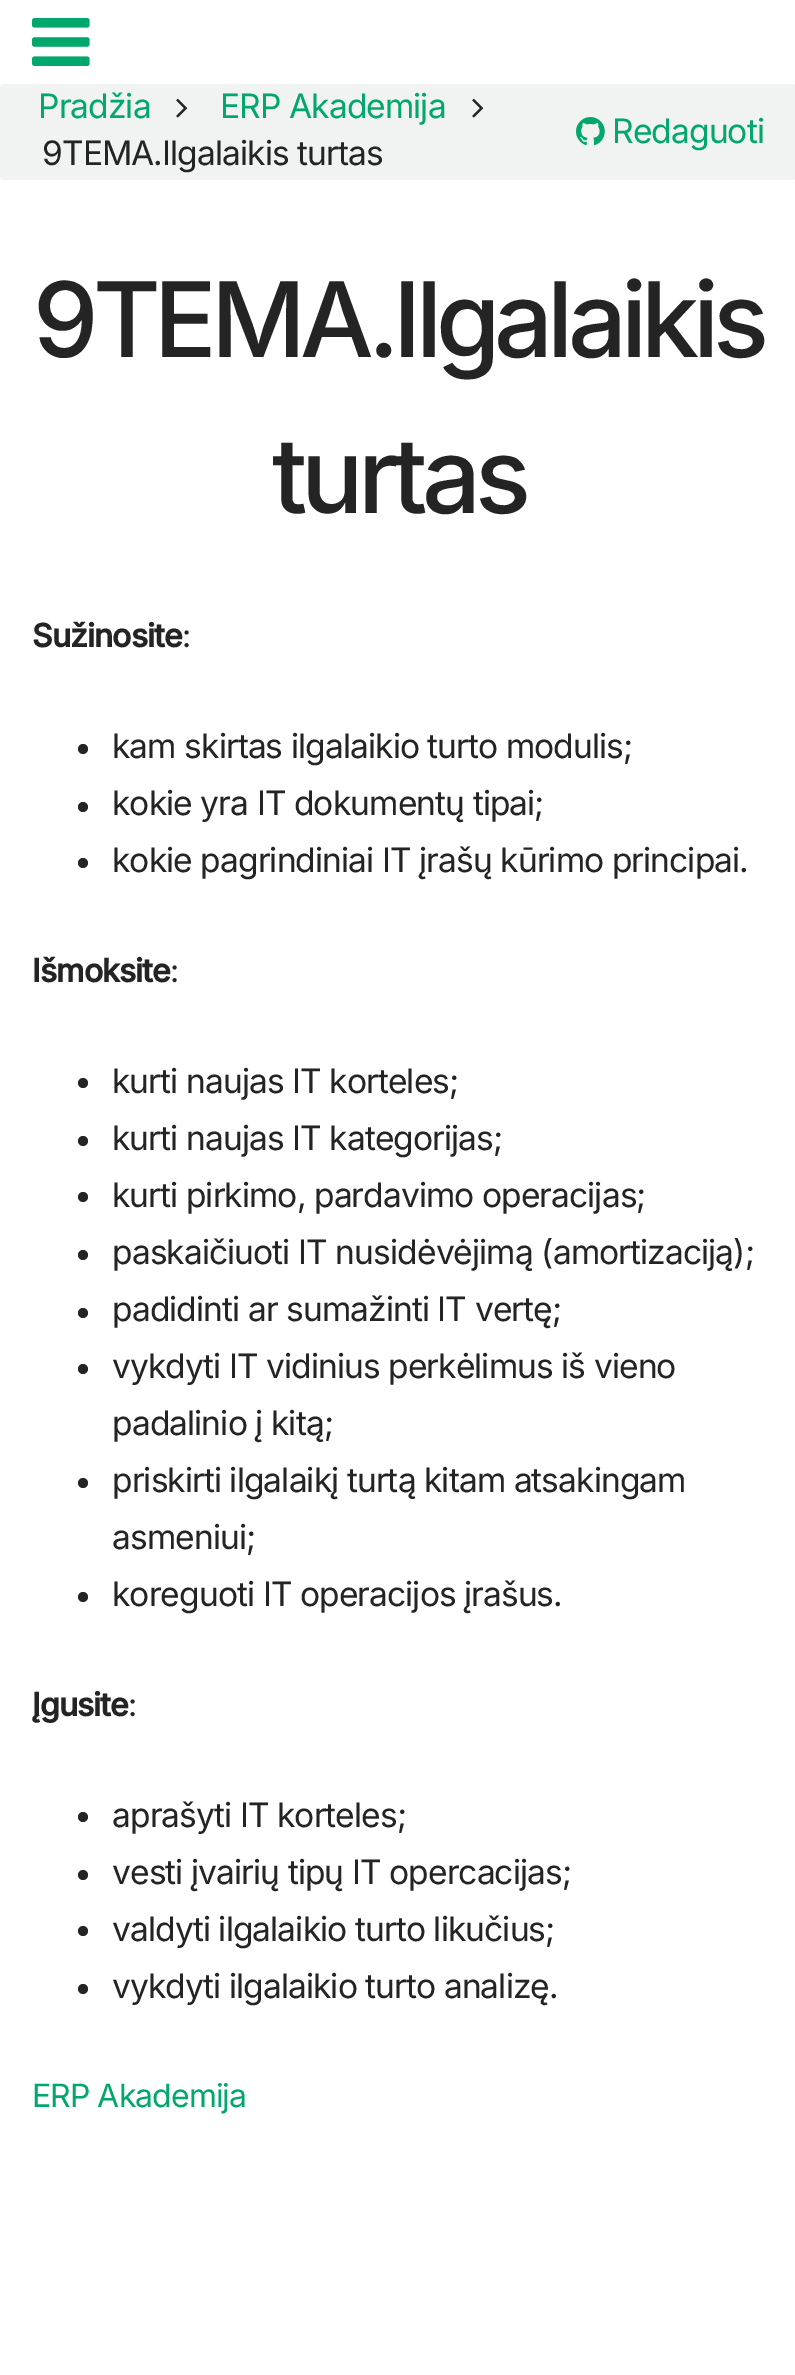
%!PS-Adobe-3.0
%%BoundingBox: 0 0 795 2375
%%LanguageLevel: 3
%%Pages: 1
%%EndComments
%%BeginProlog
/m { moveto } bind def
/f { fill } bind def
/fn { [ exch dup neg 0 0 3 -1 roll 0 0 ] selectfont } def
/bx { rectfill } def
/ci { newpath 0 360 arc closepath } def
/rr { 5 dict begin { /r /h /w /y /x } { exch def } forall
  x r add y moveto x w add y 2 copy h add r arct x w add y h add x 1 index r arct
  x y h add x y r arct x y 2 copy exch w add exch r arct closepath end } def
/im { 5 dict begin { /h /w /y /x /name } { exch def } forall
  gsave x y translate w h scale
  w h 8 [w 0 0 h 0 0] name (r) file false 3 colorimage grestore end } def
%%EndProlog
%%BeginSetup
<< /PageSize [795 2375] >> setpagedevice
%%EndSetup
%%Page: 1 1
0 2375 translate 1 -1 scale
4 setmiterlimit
1 setgray
0 0 795 2375 bx
(image0.raw) 32 18 58 48 im
0.945 0.949 0.949 setrgbcolor
0 84 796 96 4 rr f
/Inter-Regular 33.6 fn
0.004 0.655 0.42 setrgbcolor
38 118 m -0.95 0 (Pradžia) ashow
(image1.raw) 176 98 12 20 im
220 118 m -0.95 0 (ERP Akademija) ashow
(image1.raw) 472 98 12 20 im
0.141 setgray
42 165 m -0.95 0 (9TEMA.Ilgalaikis turtas) ashow
(image2.raw) 576 117 29 29 im
0.004 0.655 0.42 setrgbcolor
612 143 m -0.95 0 (Redaguoti) ashow
/Inter-Medium 104 fn
0.141 setgray
33 357 m -6 0 (9TEMA.Ilgalaikis) ashow
272 513 m -6 0 (turtas) ashow
/Inter-Bold 32 fn
32 647 m -0.95 0 (Sužinosite) ashow
/Inter-Regular 32 fn
182 647 m -0.95 0 (:) ashow
83 749 5 ci f
/Inter-Regular 33.6 fn
112 758 m -0.95 0 (kam skirtas ilgalaikio turto modulis;) ashow
83 807 5 ci f
112 815 m -0.95 0 (kokie yra IT dokumentų tipai;) ashow
83 863 5 ci f
112 872 m -0.95 0 (kokie pagrindiniai IT įrašų kūrimo principai.) ashow
/Inter-Bold 32 fn
32 982 m -0.95 0 (Išmoksite) ashow
/Inter-Regular 32 fn
170 982 m -0.95 0 (:) ashow
83 1083 5 ci f
/Inter-Regular 33.6 fn
112 1093 m -0.95 0 (kurti naujas IT korteles;) ashow
83 1141 5 ci f
112 1150 m -0.95 0 (kurti naujas IT kategorijas;) ashow
83 1197 5 ci f
112 1207 m -0.95 0 (kurti pirkimo, pardavimo operacijas;) ashow
83 1255 5 ci f
112 1264 m -0.95 0 (paskaičiuoti IT nusidėvėjimą \(amortizaciją\);) ashow
83 1313 5 ci f
112 1321 m -0.95 0 (padidinti ar sumažinti IT vertę;) ashow
83 1369 5 ci f
112 1378 m -0.95 0 (vykdyti IT vidinius perkėlimus iš vieno) ashow
112 1435 m -0.95 0 (padalinio į kitą;) ashow
83 1483 5 ci f
112 1492 m -0.95 0 (priskirti ilgalaikį turtą kitam atsakingam) ashow
112 1549 m -0.95 0 (asmeniui;) ashow
83 1597 5 ci f
112 1606 m -0.95 0 (koreguoti IT operacijos įrašus.) ashow
/Inter-Bold 32 fn
32 1716 m -0.95 0 (Įgusite) ashow
/Inter-Regular 32 fn
128 1716 m -0.95 0 (:) ashow
83 1817 5 ci f
/Inter-Regular 33.6 fn
112 1827 m -0.95 0 (aprašyti IT korteles;) ashow
83 1875 5 ci f
112 1884 m -0.95 0 (vesti įvairių tipų IT opercacijas;) ashow
83 1931 5 ci f
112 1941 m -0.95 0 (valdyti ilgalaikio turto likučius;) ashow
83 1989 5 ci f
112 1998 m -0.95 0 (vykdyti ilgalaikio turto analizę.) ashow
/Inter-Regular 32 fn
0.004 0.655 0.42 setrgbcolor
32 2107 m -0.95 0 (ERP Akademija) ashow
showpage
%%EOF
